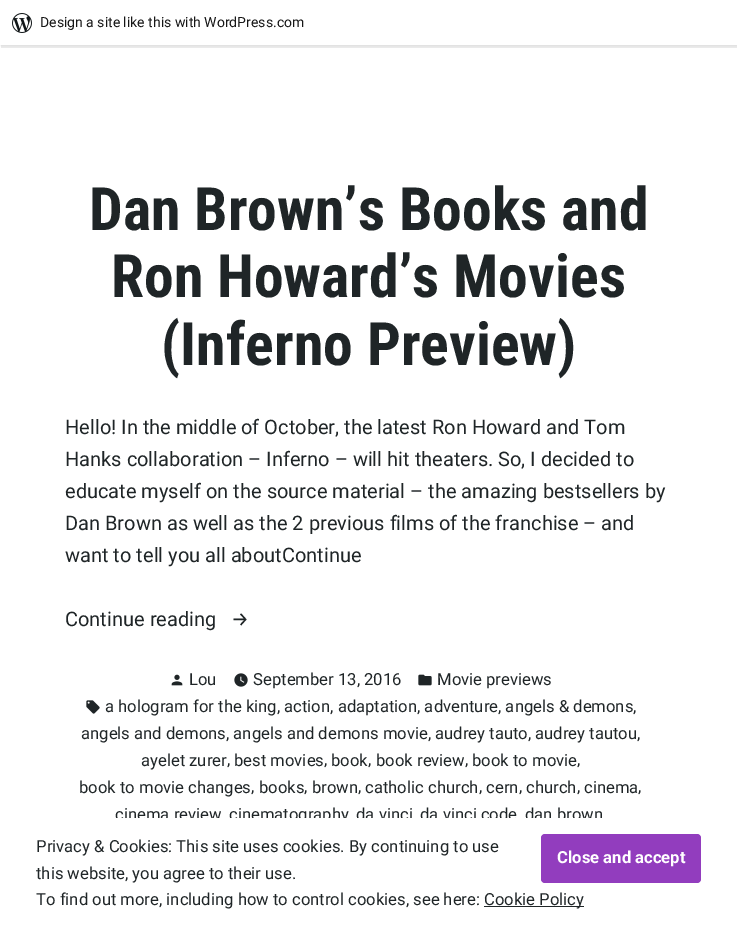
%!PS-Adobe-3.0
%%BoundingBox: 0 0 737 950
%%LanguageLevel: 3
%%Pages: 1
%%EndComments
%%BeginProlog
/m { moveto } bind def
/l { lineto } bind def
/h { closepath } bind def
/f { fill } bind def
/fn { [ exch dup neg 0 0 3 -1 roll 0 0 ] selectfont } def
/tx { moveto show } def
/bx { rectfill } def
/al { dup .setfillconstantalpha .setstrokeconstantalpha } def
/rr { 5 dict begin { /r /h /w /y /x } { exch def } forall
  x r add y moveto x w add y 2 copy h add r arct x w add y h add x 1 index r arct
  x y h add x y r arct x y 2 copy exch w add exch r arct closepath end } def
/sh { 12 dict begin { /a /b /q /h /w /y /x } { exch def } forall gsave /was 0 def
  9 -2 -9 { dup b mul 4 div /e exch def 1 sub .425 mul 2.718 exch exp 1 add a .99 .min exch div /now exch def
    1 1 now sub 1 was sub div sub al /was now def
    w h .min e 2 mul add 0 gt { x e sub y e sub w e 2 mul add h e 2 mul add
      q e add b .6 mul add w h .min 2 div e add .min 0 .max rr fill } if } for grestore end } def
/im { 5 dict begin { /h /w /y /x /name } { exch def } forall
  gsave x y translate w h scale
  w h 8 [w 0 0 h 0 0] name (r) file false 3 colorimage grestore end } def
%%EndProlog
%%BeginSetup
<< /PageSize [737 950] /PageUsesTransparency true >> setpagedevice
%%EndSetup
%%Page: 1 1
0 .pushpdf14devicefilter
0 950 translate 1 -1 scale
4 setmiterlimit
1 setgray
0 0 737 950 bx
0 setgray
0 1 737 45 0 1 0.05 sh
0.08 al
1 45 m 1 48 l 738 48 l 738 3 l 737 3 l 737 45 l h f
1 al
1 setgray
0 0 737 45 bx
(image0.raw) 12 13 20 20 im
/Roboto-Regular 14 fn
0.09 setgray
(Design a site like this with WordPress.com) 40 27 tx
/RobotoCondensed-Bold 59.75 fn
0.122 0.145 0.153 setrgbcolor
(Dan Brown’s Books and) 89 230 tx
(Ron Howard’s Movies) 111 297 tx
(\(Inferno Preview\)) 161 365 tx
/Roboto-Regular 20 fn
(Hello! In the middle of October, the latest Ron Howard and Tom) 65 434 tx
(Hanks collaboration – Inferno – will hit theaters. So, I decided to) 65 466 tx
(educate myself on the source material – the amazing bestsellers by) 65 498 tx
(Dan Brown as well as the 2 previous films of the franchise – and) 65 530 tx
(want to tell you all aboutContinue) 65 562 tx
(Continue reading) 65 626 tx
/FiraSans-Regular 20 fn
(→) 231 626 tx
(image1.raw) 171 674 12 12 im
/Roboto-Regular 16.65 fn
(Lou) 189 685 tx
(image2.raw) 234 673 14 14 im
(September 13, 2016) 253 685 tx
(image3.raw) 418 674 14 12 im
(Movie previews) 437 685 tx
(image4.raw) 86 700 14 14 im
(a hologram for the king, action, adaptation, adventure, angels & demons,) 105 712 tx
(angels and demons, angels and demons movie, audrey tauto, audrey tautou,) 81 739 tx
(ayelet zurer) 141 766 tx
(,) 227 765 tx
(best movies) 234 766 tx
(,) 324 765 tx
(book) 331 766 tx
(,) 368 765 tx
(book review) 376 766 tx
(,) 465 765 tx
(book to movie) 472 766 tx
(,) 577 765 tx
(book to movie changes) 79 793 tx
(,) 251 792 tx
(books) 259 793 tx
(,) 304 792 tx
(brown) 312 793 tx
(,) 358 792 tx
(catholic church) 365 793 tx
(,) 479 792 tx
(cern) 486 793 tx
(,) 519 792 tx
(church) 526 793 tx
(,) 577 792 tx
(cinema) 584 793 tx
(,) 638 792 tx
(cinema review) 115 820 tx
(cinematography) 229 820 tx
(da vinci) 356 820 tx
(da vinci code) 420 820 tx
(dan brown) 525 820 tx
1 setgray
116 818 486 6 bx
0.122 0.145 0.153 setrgbcolor
(Privacy & Cookies: This site uses cookies. By continuing to use) 36 852 tx
0.573 0.239 0.745 setrgbcolor
541 834 160 49 4 rr f
/Roboto-Bold 16.65 fn
1 setgray
(Close and accept) 557 863 tx
/Roboto-Regular 16.65 fn
0.122 0.145 0.153 setrgbcolor
(this website, you agree to their use.) 36 879 tx
(To find out more, including how to control cookies, see here:) 36 905 tx
484 906 100 1 bx
(Cookie Policy) 484 905 tx
.poppdf14devicefilter showpage
%%EOF
